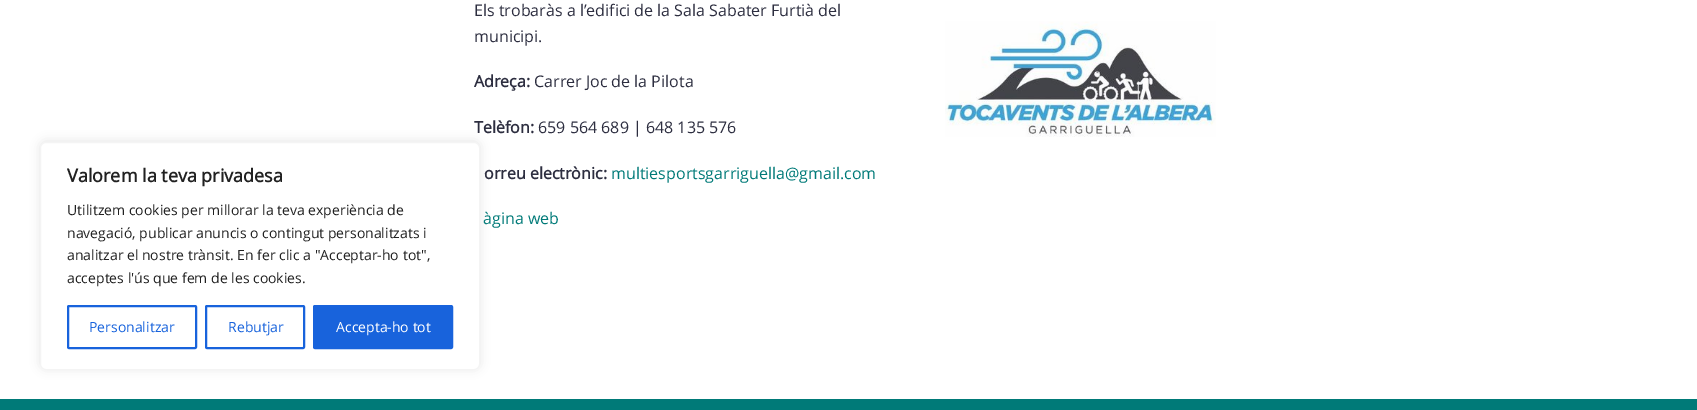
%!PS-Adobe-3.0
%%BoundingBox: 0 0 1697 410
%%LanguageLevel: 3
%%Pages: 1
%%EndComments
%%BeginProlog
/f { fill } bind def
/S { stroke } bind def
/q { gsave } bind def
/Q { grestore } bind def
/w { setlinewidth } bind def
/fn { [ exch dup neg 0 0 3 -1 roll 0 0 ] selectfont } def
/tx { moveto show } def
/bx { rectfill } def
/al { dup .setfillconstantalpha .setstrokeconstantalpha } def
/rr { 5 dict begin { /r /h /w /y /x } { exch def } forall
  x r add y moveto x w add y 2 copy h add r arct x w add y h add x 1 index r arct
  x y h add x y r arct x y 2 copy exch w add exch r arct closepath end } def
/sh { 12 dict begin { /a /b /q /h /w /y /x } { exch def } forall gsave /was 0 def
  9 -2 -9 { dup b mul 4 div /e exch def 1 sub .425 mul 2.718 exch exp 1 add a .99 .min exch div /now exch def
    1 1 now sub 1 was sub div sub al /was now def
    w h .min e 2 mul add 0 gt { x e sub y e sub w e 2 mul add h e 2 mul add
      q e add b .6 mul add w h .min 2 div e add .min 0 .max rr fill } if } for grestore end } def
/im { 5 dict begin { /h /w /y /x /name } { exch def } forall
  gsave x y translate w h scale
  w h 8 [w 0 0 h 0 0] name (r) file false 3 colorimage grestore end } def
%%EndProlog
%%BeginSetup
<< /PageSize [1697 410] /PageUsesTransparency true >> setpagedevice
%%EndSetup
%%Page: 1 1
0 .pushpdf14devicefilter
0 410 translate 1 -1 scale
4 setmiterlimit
1 setgray
0 0 1697 410 bx
/OpenSans-Regular 16 fn
0.176 0.18 0.251 setrgbcolor
(Els trobaràs a l’edifici de la Sala Sabater Furtià del) 474 16 tx
(municipi.) 474 42 tx
/OpenSans-Bold 16 fn
(Adreça:) 474 87 tx
/OpenSans-Regular 16 fn
(Carrer Joc de la Pilota) 534 87 tx
/OpenSans-Bold 16 fn
(Telèfon:) 474 133 tx
/OpenSans-Regular 16 fn
(659 564 689 | 648 135 576) 538 133 tx
/OpenSans-Bold 16 fn
(orreu electrònic:) 484 179 tx
/OpenSans-Regular 16 fn
0 0.478 0.471 setrgbcolor
(multiesportsgarriguella@gmail.com) 611 179 tx
(àgina web) 483 224 tx
(image0.raw) 945 21 271 116 im
0.675 0.671 0.671 setrgbcolor
40 141 440 228 6 5 0.3 sh
1 setgray
40.5 142.5 439 227 5.5 rr q f Q
0.957 setgray
S
/OpenSans-Bold 18 fn
0.129 setgray
(Valorem la teva privadesa) 67 182 tx
/OpenSans-Regular 14 fn
(Utilitzem cookies per millorar la teva experiència de) 67 215 tx
(navegació, publicar anuncis o contingut personalitzats i) 67 238 tx
(analitzar el nostre trànsit. En fer clic a "Acceptar-ho tot",) 67 260 tx
(acceptes l'ús que fem de les cookies.) 67 283 tx
0.094 0.388 0.863 setrgbcolor
2 w
68 306 128 42 1 rr S
(Personalitzar) 89 332 tx
206 306 98 42 1 rr S
(Rebutjar) 228 332 tx
314 306 138 42 1 rr q f Q
S
1 setgray
(Accepta-ho tot) 336 332 tx
0 0.478 0.471 setrgbcolor
0 399 1697 11 bx
.poppdf14devicefilter showpage
%%EOF
